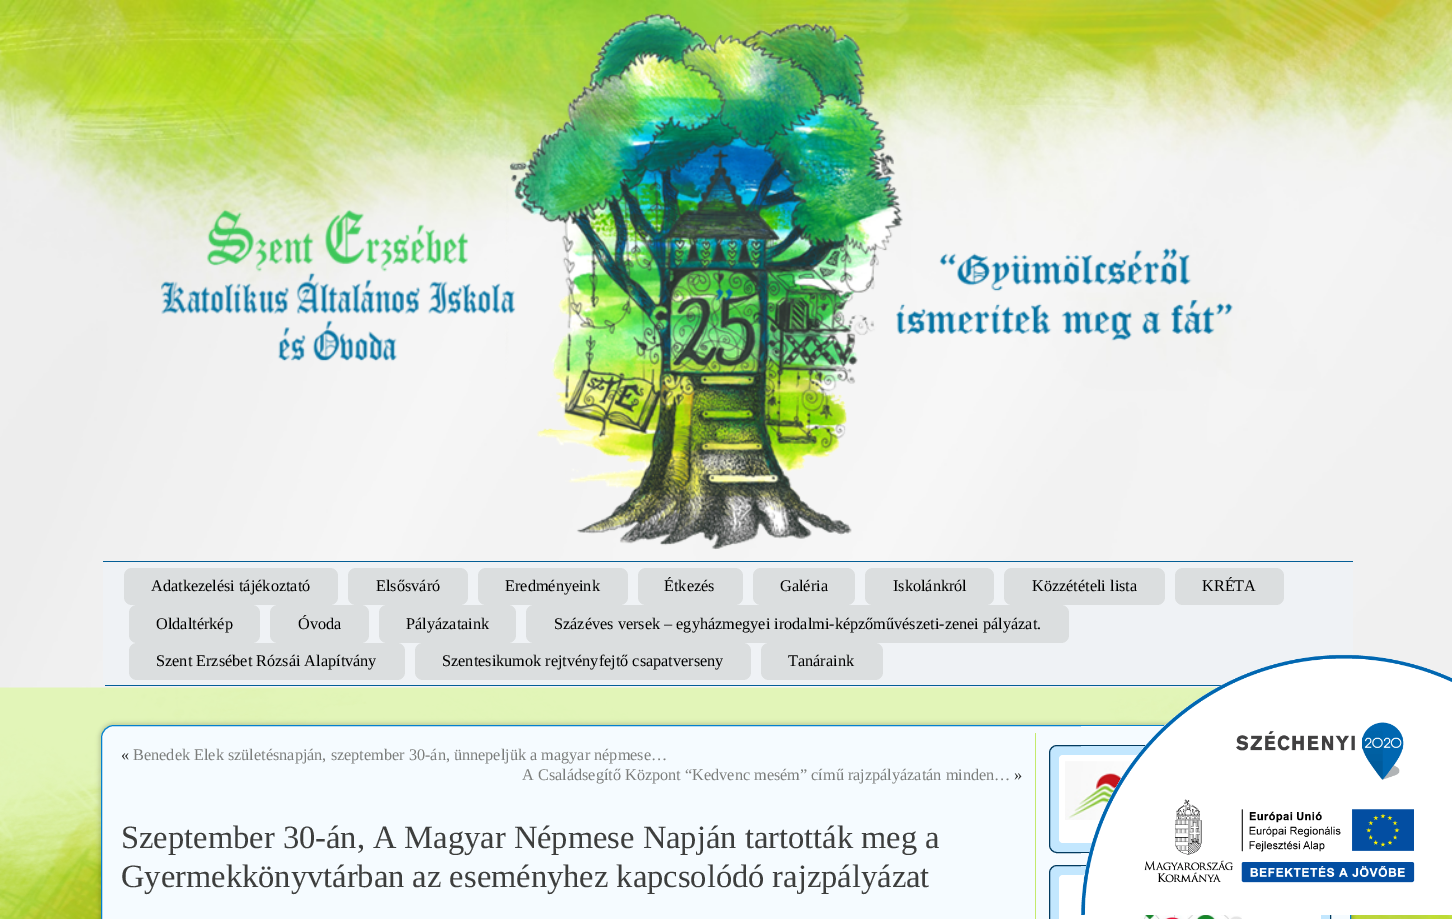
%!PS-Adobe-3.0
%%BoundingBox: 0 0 1452 919
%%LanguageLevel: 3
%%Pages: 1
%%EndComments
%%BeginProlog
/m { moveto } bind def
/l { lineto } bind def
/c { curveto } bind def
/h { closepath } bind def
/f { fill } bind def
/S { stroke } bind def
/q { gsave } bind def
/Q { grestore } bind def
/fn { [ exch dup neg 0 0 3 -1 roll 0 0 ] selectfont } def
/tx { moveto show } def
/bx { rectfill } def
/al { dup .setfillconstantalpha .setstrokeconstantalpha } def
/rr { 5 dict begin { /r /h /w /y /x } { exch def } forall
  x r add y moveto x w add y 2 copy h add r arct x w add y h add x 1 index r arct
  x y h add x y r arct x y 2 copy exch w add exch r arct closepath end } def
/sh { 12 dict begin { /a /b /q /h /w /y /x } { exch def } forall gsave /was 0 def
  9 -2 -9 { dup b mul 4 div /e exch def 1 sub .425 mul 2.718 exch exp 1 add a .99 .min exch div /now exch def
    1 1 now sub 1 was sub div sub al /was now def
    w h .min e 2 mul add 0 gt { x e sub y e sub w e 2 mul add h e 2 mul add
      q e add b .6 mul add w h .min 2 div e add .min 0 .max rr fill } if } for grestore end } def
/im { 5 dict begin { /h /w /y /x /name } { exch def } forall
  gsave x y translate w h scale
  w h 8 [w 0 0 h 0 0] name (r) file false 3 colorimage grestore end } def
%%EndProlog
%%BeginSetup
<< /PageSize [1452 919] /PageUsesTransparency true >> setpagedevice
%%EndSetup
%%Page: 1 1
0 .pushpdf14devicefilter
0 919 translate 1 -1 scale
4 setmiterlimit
0.886 0.961 0.722 setrgbcolor
0 0 1452 919 bx
(image0.raw) 0 689 1452 230 im
(image1.raw) 0 0 1452 688 im
(image2.raw) 161 13 1072 537 im
0.937 0.949 0.961 setrgbcolor
103 561 m 1353 561 l 1353 681 l 1353 684 1351 686 1348 686 c 108 686 l 105 686 103 684 103 681 c h f
0.012 0.369 0.588 setrgbcolor
103 561 1250 1 bx
105 685 1116 1 bx
0.859 0.871 0.875 setrgbcolor
124 568 214 37 8 rr f
/LiberationSerif-Regular 16.25 fn
0 setgray
(Adatkezelési tájékoztató) 151 591 tx
0.859 0.871 0.875 setrgbcolor
348 568 120 37 8 rr f
0 setgray
(Elsősváró) 376 591 tx
0.859 0.871 0.875 setrgbcolor
478 568 150 37 8 rr f
0 setgray
(Eredményeink) 505 591 tx
0.859 0.871 0.875 setrgbcolor
638 568 105 37 8 rr f
0 setgray
(Étkezés) 664 591 tx
0.859 0.871 0.875 setrgbcolor
753 568 102 37 8 rr f
0 setgray
(Galéria) 780 591 tx
0.859 0.871 0.875 setrgbcolor
865 568 129 37 8 rr f
0 setgray
(Iskolánkról) 893 591 tx
0.859 0.871 0.875 setrgbcolor
1004 568 161 37 8 rr f
0 setgray
(Közzétételi lista) 1032 591 tx
0.859 0.871 0.875 setrgbcolor
1175 568 109 37 8 rr f
0 setgray
(KRÉTA) 1202 591 tx
0.859 0.871 0.875 setrgbcolor
129 605 131 38 8 rr f
0 setgray
(Oldaltérkép) 156 629 tx
0.859 0.871 0.875 setrgbcolor
270 605 99 38 8 rr f
0 setgray
(Óvoda) 298 629 tx
0.859 0.871 0.875 setrgbcolor
379 605 137 38 8 rr f
0 setgray
(Pályázataink) 406 629 tx
0.859 0.871 0.875 setrgbcolor
526 605 543 38 8 rr f
0 setgray
(Százéves versek – egyházmegyei irodalmi-képzőművészeti-zenei pályázat.) 554 629 tx
0.859 0.871 0.875 setrgbcolor
129 643 276 37 8 rr f
0 setgray
(Szent Erzsébet Rózsái Alapítvány) 156 666 tx
0.859 0.871 0.875 setrgbcolor
415 643 336 37 8 rr f
0 setgray
(Szentesikumok rejtvényfejtő csapatverseny) 442 666 tx
0.859 0.871 0.875 setrgbcolor
761 643 122 37 8 rr f
0 setgray
(Tanáraink) 788 666 tx
99 723 1255 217 15 2 0.15 sh
0.961 0.984 1 setrgbcolor
101.5 725.5 1249 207 12.5 rr q f Q
0.016 0.502 0.804 setrgbcolor
S
0.157 0.161 0.157 setrgbcolor
(«) 121 760 tx
0.486 0.494 0.486 setrgbcolor
(Benedek Elek születésnapján, szeptember 30-án, ünnepeljük a magyar népmese…) 133 760 tx
(A Családsegítő Központ “Kedvenc mesém” című rajzpályázatán minden…) 522 780 tx
0.157 0.161 0.157 setrgbcolor
(») 1014 780 tx
/LiberationSerif-Regular 32.5 fn
0.239 0.243 0.239 setrgbcolor
(Szeptember 30-án, A Magyar Népmese Napján tartották meg a) 121 848 tx
(Gyermekkönyvtárban az eseményhez kapcsolódó rajzpályázat) 121 887 tx
0.769 0.918 0.424 setrgbcolor
1035 733 1 186 bx
0.765 0.906 0.996 setrgbcolor
1049.5 745.5 281 107 7.5 rr q f Q
0.008 0.231 0.373 setrgbcolor
S
1 setgray
1059 755 262 88 4 rr f
(image3.raw) 1065 761 68 59 im
0.765 0.906 0.996 setrgbcolor
1049.5 865.5 281 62 7.5 rr q f Q
0.008 0.231 0.373 setrgbcolor
S
1 setgray
1059 875 262 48 4 rr f
(image4.raw) 1140 915 102 4 im
(image5.raw) 1081 654 371 261 im
.poppdf14devicefilter showpage
%%EOF
